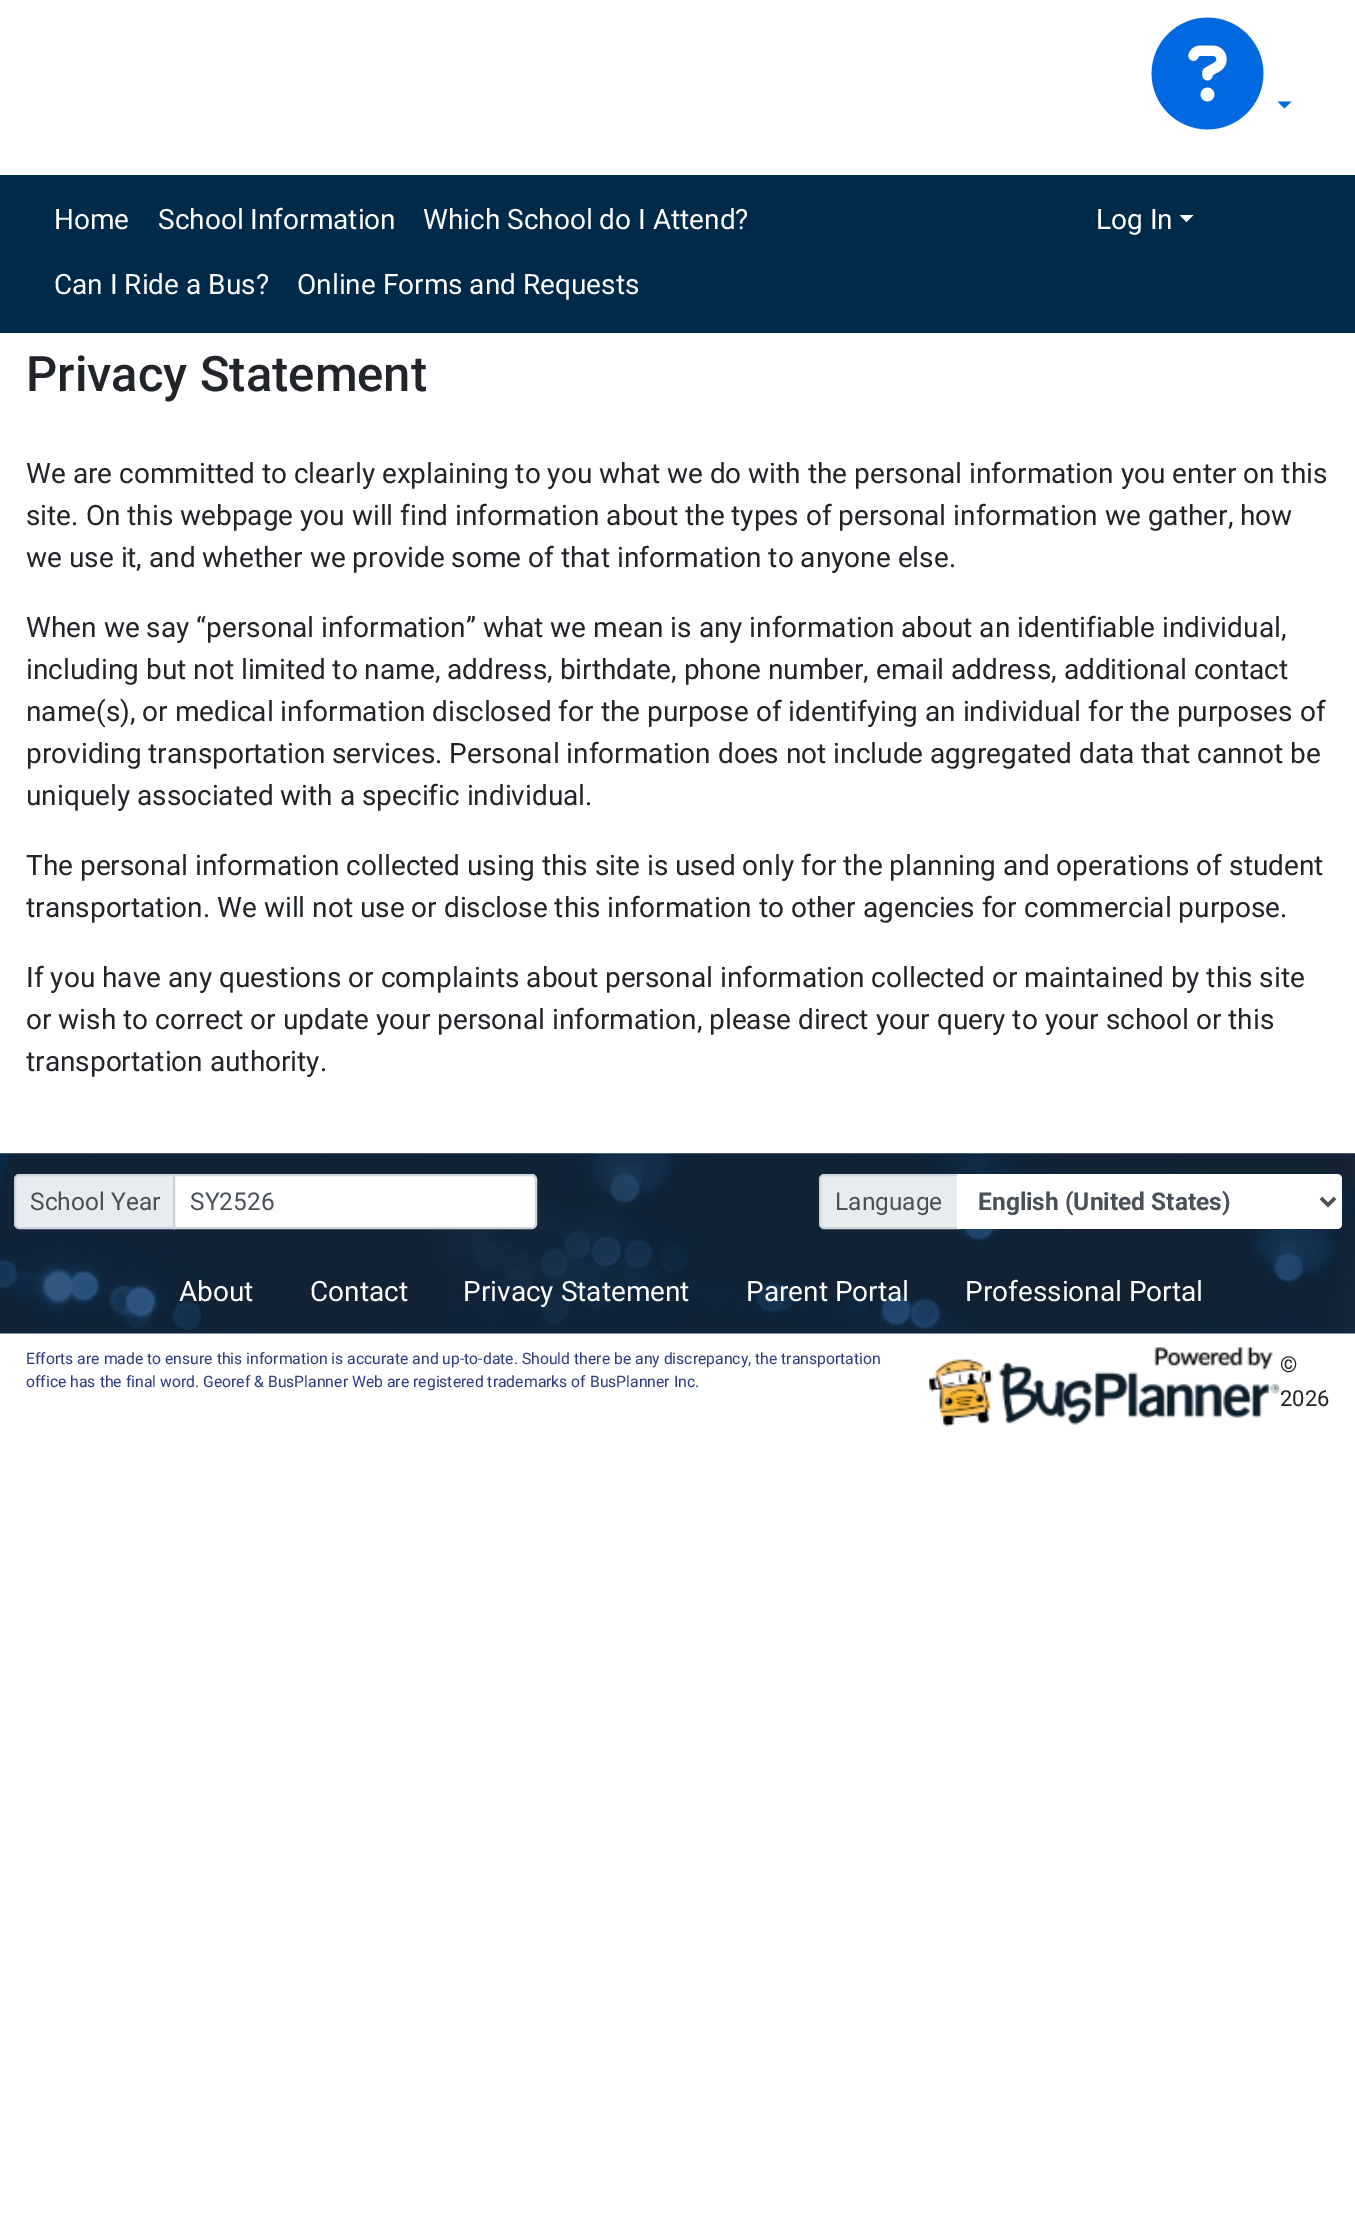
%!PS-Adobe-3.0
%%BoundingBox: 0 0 1355 2236
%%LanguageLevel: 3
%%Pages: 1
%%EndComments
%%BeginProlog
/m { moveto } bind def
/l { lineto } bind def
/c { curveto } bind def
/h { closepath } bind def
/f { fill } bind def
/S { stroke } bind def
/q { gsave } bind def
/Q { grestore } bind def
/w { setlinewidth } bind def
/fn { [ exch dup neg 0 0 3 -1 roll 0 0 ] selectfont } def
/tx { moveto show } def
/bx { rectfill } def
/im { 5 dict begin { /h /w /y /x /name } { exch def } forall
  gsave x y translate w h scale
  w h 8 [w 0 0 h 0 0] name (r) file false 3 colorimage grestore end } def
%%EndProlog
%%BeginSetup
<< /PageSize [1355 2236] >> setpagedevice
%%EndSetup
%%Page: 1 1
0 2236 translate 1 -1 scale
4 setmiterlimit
1 setgray
0 0 1355 2236 bx
(image0.raw) 1151 17 113 113 im
0 0.412 0.878 setrgbcolor
1277.5 101.5 m 1291.5 101.5 l 1284.5 108.5 l h f
0 0.165 0.29 setrgbcolor
0 175 1355 158 bx
/Roboto-Regular 28 fn
1 setgray
(Home) 54 229 tx
(School Information) 158 229 tx
(Which School do I Attend?) 423 229 tx
(Can I Ride a Bus?) 54 294 tx
(Online Forms and Requests) 297 294 tx
(Log In) 1096 229 tx
1179.5 215 m 1193.5 215 l 1186.5 222 l h f
/Roboto-Medium 49 fn
0.129 0.145 0.161 setrgbcolor
(Privacy Statement) 26 391 tx
/Roboto-Regular 28 fn
(We are committed to clearly explaining to you what we do with the personal information you enter on this) 26 483 tx
(site. On this webpage you will find information about the types of personal information we gather, how) 26 525 tx
(we use it, and whether we provide some of that information to anyone else.) 26 567 tx
(When we say “personal information” what we mean is any information about an identifiable individual,) 26 637 tx
(including but not limited to name, address, birthdate, phone number, email address, additional contact) 26 679 tx
(name\(s\), or medical information disclosed for the purpose of identifying an individual for the purposes of) 26 721 tx
(providing transportation services. Personal information does not include aggregated data that cannot be) 26 763 tx
(uniquely associated with a specific individual.) 26 805 tx
(The personal information collected using this site is used only for the planning and operations of student) 26 875 tx
(transportation. We will not use or disclose this information to other agencies for commercial purpose.) 26 917 tx
(If you have any questions or complaints about personal information collected or maintained by this site) 26 987 tx
(or wish to correct or update your personal information, please direct your query to your school or this) 26 1029 tx
(transportation authority.) 26 1071 tx
(image1.raw) 0 1153 1355 181 im
0.914 0.925 0.937 setrgbcolor
19 1175 m 174 1175 l 174 1228 l 19 1228 l 17 1228 15 1226 15 1224 c 15 1179 l 15 1177 17 1175 19 1175 c h q f Q
0.808 0.831 0.855 setrgbcolor
2 w
S
/Roboto-Regular 24.5 fn
0.286 0.314 0.341 setrgbcolor
(School Year) 30 1210 tx
1 setgray
174 1175 m 532 1175 l 534 1175 536 1177 536 1179 c 536 1224 l 536 1226 534 1228 532 1228 c 174 1228 l h q f Q
0.808 0.831 0.855 setrgbcolor
S
0.286 0.314 0.341 setrgbcolor
(SY2526) 190 1210 tx
0.914 0.925 0.937 setrgbcolor
824 1175 m 958 1175 l 958 1228 l 824 1228 l 822 1228 820 1226 820 1224 c 820 1179 l 820 1177 822 1175 824 1175 c h q f Q
0.808 0.831 0.855 setrgbcolor
S
0.286 0.314 0.341 setrgbcolor
(Language) 835 1210 tx
1 setgray
957 1174 m 1337 1174 l 1340 1174 1342 1176 1342 1179 c 1342 1224 l 1342 1227 1340 1229 1337 1229 c 957 1229 l h f
0.286 0.314 0.341 setrgbcolor
3.5 w
1321 1198 m 1328 1205 l 1335 1198 l S
/Roboto-Bold 24.5 fn
(English \(United States\)) 978 1210 tx
/Roboto-Regular 28 fn
1 setgray
(About) 179 1301 tx
(Contact) 310 1301 tx
(Privacy Statement) 463 1301 tx
(Parent Portal) 746 1301 tx
(Professional Portal) 965 1301 tx
/Roboto-Regular 15.75 fn
0.18 0.231 0.494 setrgbcolor
(Efforts are made to ensure this information is accurate and up-to-date. Should there be any discrepancy, the transportation) 26 1364 tx
(office has the final word. Georef & BusPlanner Web are registered trademarks of BusPlanner Inc.) 26 1387 tx
(image2.raw) 929 1347 351 80 im
/Roboto-Regular 22 fn
0.129 0.145 0.161 setrgbcolor
(©) 1280 1372 tx
(2026) 1280 1406 tx
showpage
%%EOF
